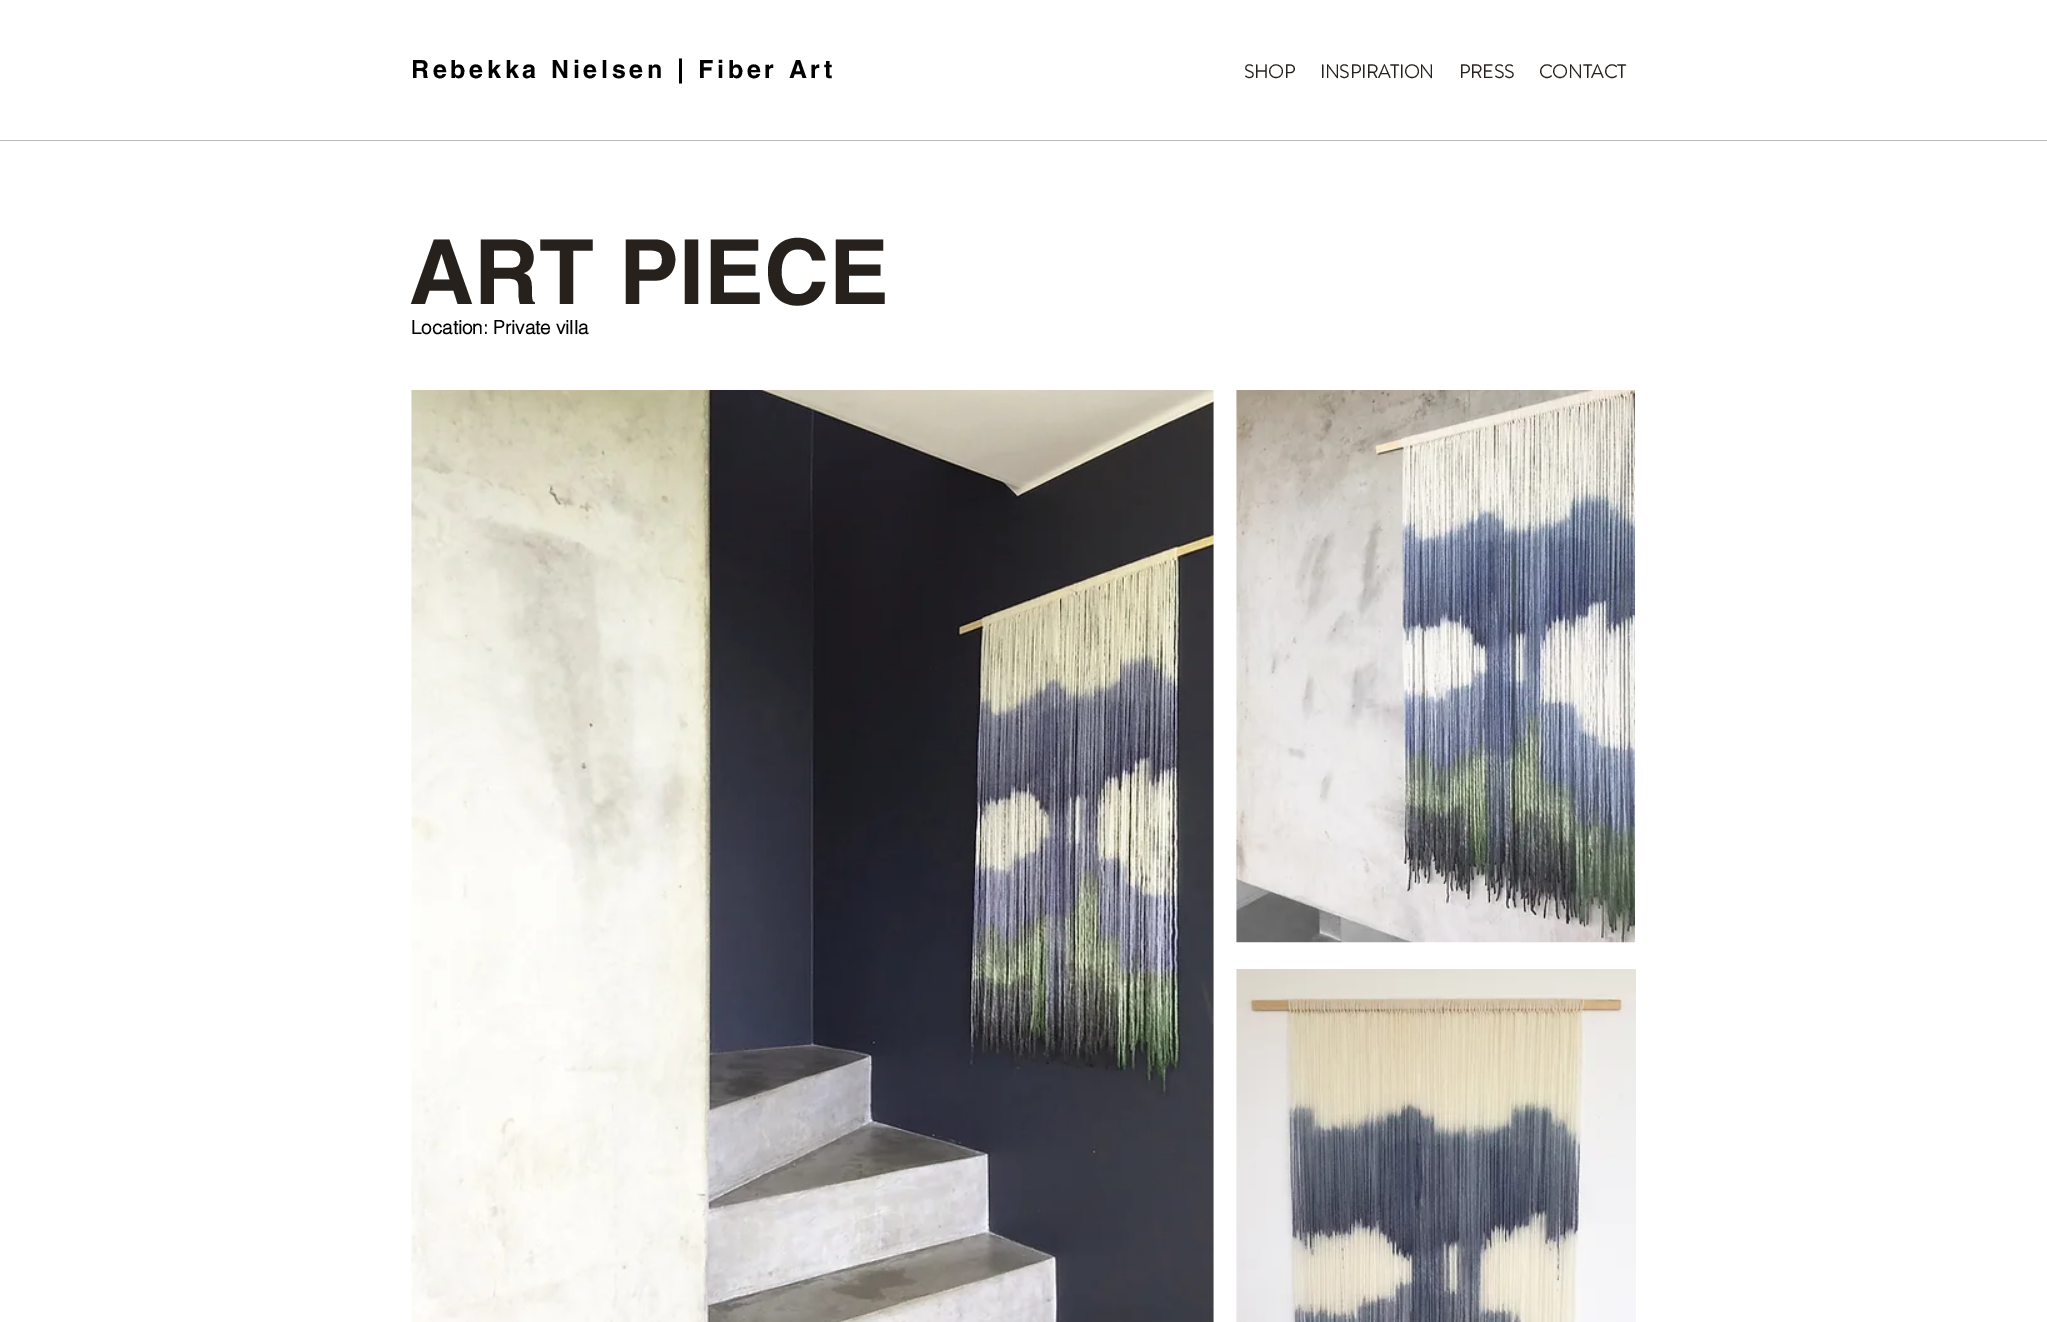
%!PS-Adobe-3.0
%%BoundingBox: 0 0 2047 1322
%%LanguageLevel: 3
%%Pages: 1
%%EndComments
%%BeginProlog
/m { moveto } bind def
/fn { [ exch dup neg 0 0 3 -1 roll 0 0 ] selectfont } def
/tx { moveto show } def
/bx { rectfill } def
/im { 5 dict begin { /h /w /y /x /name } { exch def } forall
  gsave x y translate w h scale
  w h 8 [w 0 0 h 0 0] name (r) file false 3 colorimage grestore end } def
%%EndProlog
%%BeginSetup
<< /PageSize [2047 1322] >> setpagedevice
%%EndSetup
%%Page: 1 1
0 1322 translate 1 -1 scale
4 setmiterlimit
1 setgray
0 0 2047 1322 bx
/helvetica-Bold 25 fn
0 setgray
411 78 m 3.75 0 (Rebekka Nielsen | Fiber Art) ashow
/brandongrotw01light-Bold 18.75 fn
0.149 0.129 0.11 setrgbcolor
(SHOP) 1244 78 tx
(INSPIRATION) 1320 78 tx
(PRESS) 1459 78 tx
(CONTACT) 1539 78 tx
0.745 0.737 0.733 setrgbcolor
0 140 2047 1 bx
/helvetica-Bold 90 fn
0.149 0.129 0.11 setrgbcolor
(ART PIECE) 409 304 tx
/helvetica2-Bold 18.75 fn
0 setgray
(Location: Private villa) 411 334 tx
(image0.raw) 411 390 803 932 im
(image1.raw) 1236 390 399 553 im
(image2.raw) 1236 969 400 353 im
showpage
%%EOF
